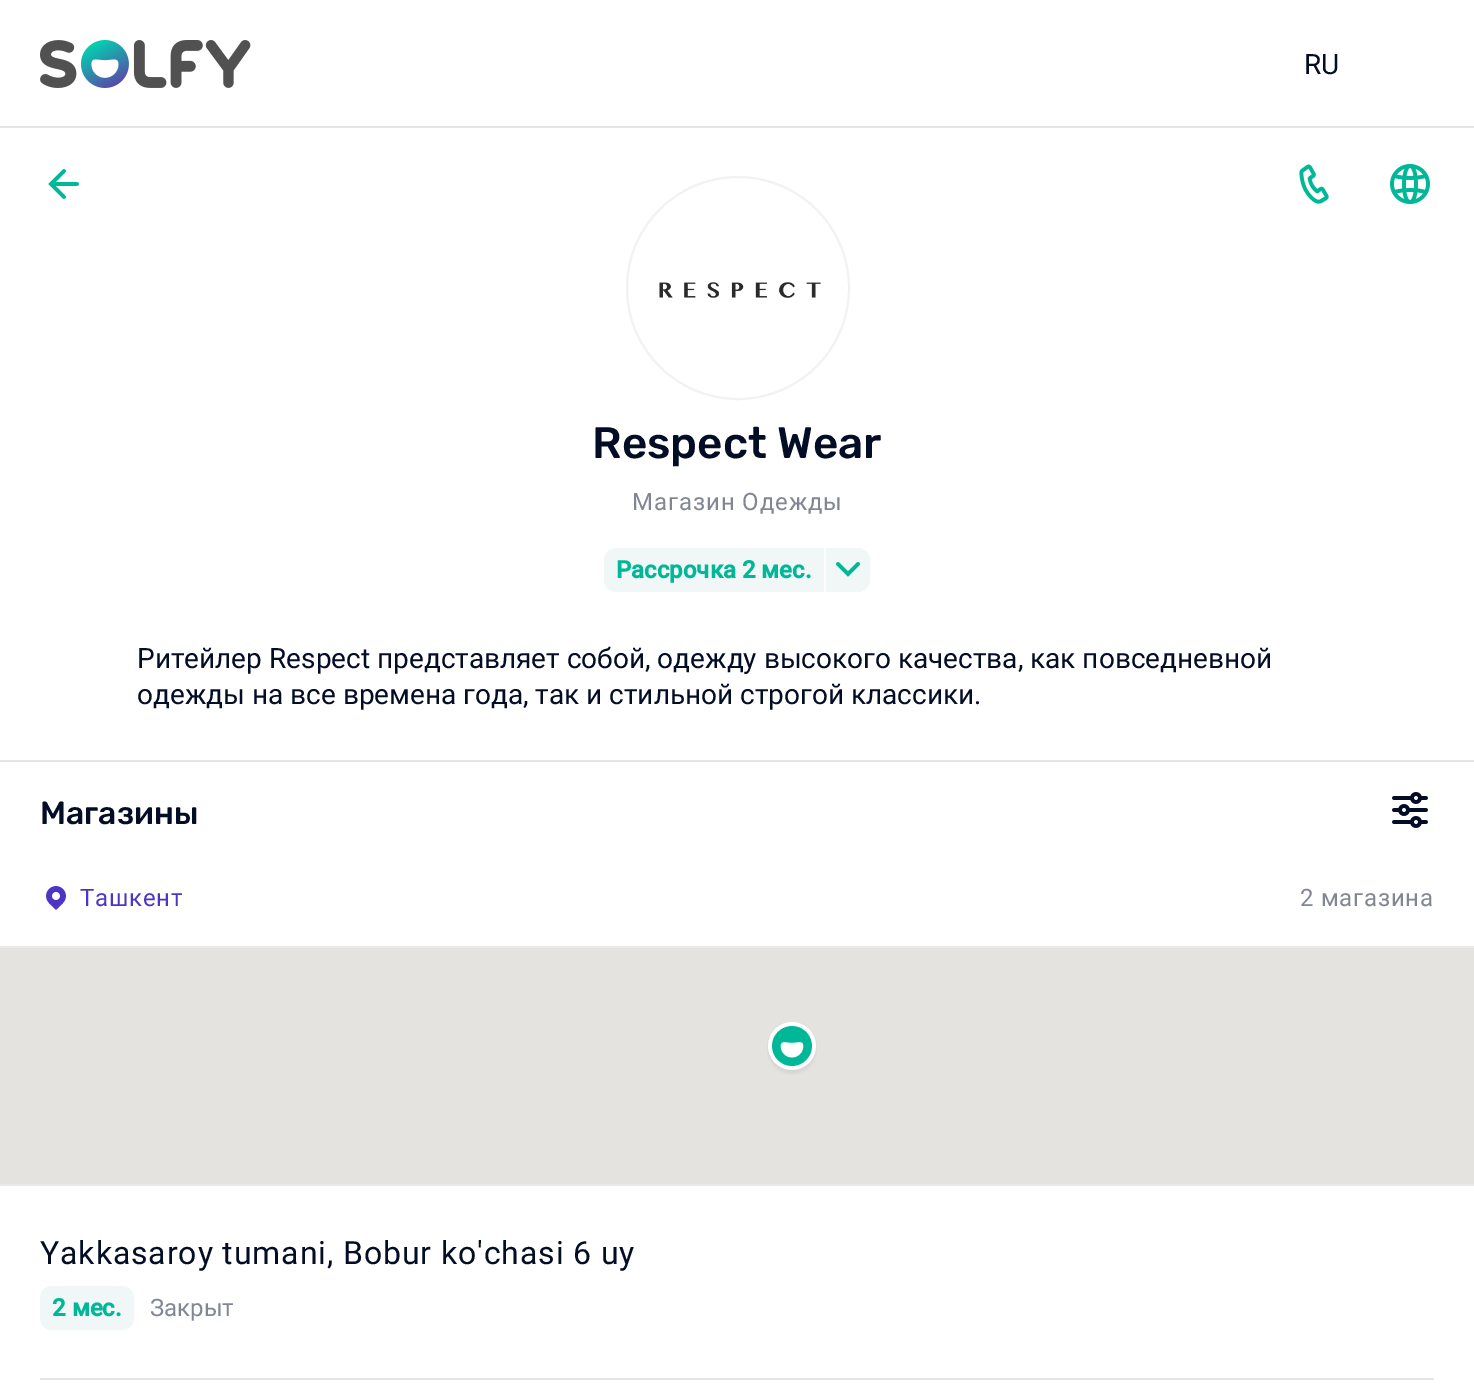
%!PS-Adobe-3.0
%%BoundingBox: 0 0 1474 1388
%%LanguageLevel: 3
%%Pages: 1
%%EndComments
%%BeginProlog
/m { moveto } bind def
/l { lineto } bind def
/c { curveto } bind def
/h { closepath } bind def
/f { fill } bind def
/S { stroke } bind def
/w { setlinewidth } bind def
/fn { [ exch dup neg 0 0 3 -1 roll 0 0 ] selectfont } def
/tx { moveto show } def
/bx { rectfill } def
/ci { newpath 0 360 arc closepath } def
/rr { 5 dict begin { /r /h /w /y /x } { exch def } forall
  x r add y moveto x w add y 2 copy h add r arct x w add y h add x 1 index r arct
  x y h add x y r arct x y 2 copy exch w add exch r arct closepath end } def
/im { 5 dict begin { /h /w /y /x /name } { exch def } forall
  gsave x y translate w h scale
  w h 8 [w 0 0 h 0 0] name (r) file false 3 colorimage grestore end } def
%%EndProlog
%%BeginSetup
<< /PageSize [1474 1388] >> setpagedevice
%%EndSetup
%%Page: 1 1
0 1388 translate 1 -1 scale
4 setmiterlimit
1 setgray
0 0 1474 1388 bx
(image0.raw) 40 40 211 48 im
/Roboto-Regular 28 fn
0.012 0.051 0.145 setrgbcolor
(RU) 1304 74 tx
0.89 0.898 0.91 setrgbcolor
0 126 1474 2 bx
(image1.raw) 48 169 31 30 im
(image2.raw) 1299 164 30 40 im
(image3.raw) 1390 164 40 40 im
0.949 setgray
2 w
738 288 111 ci S
(image4.raw) 659 282 162 16 im
/Rubik-Medium 44 fn
0.012 0.051 0.145 setrgbcolor
(Respect Wear) 592 458 tx
/Roboto-Regular 24 fn
0.506 0.525 0.573 setrgbcolor
632 510 m 0.9 0 (Магазин Одежды) ashow
0.941 0.969 0.965 setrgbcolor
616 548 m 824 548 l 824 592 l 616 592 l 609.5 592 604 586.5 604 580 c 604 560 l 604 553.5 609.5 548 616 548 c h f
/Roboto-Bold 24 fn
0 0.718 0.596 setrgbcolor
(Рассрочка 2 мес.) 616 578 tx
0.941 0.969 0.965 setrgbcolor
826 548 m 858 548 l 864.5 548 870 553.5 870 560 c 870 580 l 870 586.5 864.5 592 858 592 c 826 592 l h f
(image5.raw) 836 562 24 15 im
/Roboto-Regular 28 fn
0.012 0.051 0.145 setrgbcolor
(Ритейлер Respect представляет собой, одежду высокого качества, как повседневной) 137 668 tx
(одежды на все времена года, так и стильной строгой классики.) 137 704 tx
0.89 0.898 0.91 setrgbcolor
0 760 1474 2 bx
/Rubik-Medium 32 fn
0.012 0.051 0.145 setrgbcolor
(Магазины) 40 824 tx
(image6.raw) 1392 792 36 36 im
(image7.raw) 46 886 20 24 im
/Roboto-Regular 24 fn
0.306 0.212 0.769 setrgbcolor
80 906 m 0.75 0 (Ташкент) ashow
0.506 0.525 0.573 setrgbcolor
1300 906 m 0.75 0 (2 магазина) ashow
0.914 setgray
0 946 1474 2 bx
0 1184 1474 2 bx
0.898 0.89 0.875 setrgbcolor
0 948 1474 236 bx
(image8.raw) 767 1022 50 53 im
0.89 0.898 0.91 setrgbcolor
40 1378 1394 2 bx
/Roboto-Regular 32 fn
0.012 0.051 0.145 setrgbcolor
40 1264 m 0.9 0 (Yakkasaroy tumani, Bobur ko'chasi 6 uy) ashow
0.941 0.969 0.965 setrgbcolor
40 1286 94 44 12 rr f
/Roboto-Bold 24 fn
0 0.718 0.596 setrgbcolor
(2 мес.) 52 1316 tx
/Roboto-Regular 24 fn
0.506 0.525 0.573 setrgbcolor
(Закрыт) 150 1316 tx
showpage
%%EOF
